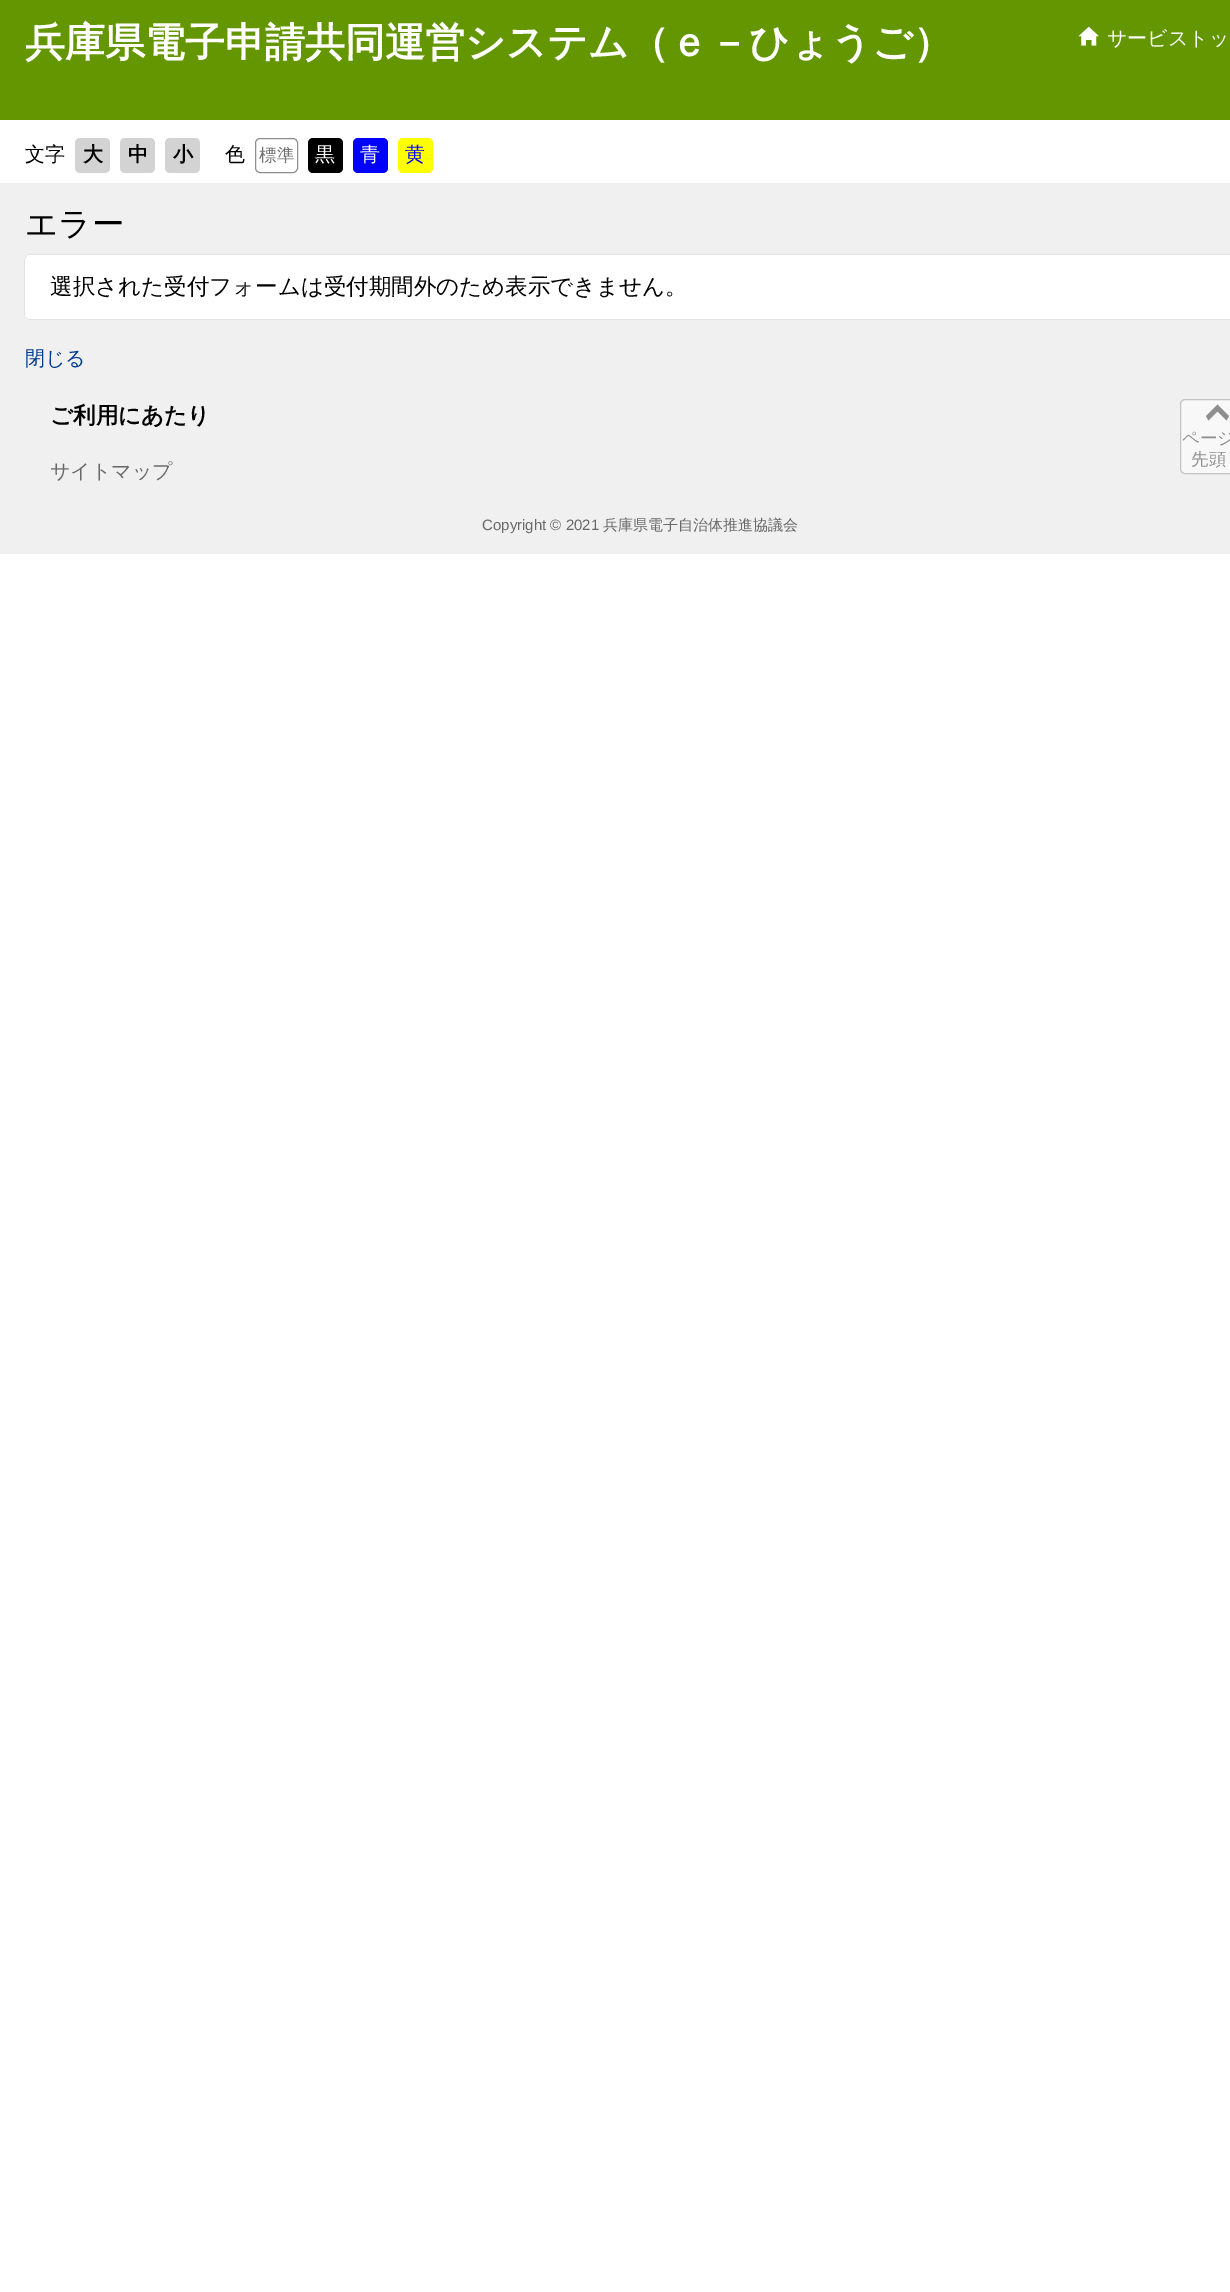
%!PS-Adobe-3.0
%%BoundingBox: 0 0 1230 2292
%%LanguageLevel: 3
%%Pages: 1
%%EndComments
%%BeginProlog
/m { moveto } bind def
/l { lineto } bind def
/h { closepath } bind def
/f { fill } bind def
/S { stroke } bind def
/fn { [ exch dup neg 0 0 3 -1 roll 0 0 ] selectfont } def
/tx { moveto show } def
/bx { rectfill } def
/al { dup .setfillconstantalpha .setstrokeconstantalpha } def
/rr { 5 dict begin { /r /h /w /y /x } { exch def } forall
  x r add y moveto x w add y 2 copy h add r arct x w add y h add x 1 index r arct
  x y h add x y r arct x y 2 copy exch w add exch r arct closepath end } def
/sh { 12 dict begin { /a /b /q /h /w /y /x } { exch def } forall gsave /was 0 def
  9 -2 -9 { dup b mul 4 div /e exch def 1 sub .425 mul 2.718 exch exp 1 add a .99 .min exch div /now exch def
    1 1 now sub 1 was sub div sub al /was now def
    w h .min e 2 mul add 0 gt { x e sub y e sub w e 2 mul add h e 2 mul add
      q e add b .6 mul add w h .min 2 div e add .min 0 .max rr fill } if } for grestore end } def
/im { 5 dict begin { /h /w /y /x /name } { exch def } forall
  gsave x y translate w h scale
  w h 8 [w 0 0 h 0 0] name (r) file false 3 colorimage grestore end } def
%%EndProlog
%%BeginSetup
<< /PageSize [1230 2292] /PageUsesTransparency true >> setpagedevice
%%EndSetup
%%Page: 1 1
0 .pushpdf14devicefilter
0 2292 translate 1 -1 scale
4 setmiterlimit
1 setgray
0 0 1230 2292 bx
0.388 0.588 0 setrgbcolor
0 0 1230 120 bx
/WenQuanYiZenHei-Bold 40 fn
1 setgray
(兵庫県電子申請共同運営システム（ｅ－ひょうご）) 25 56 tx
(image0.raw) 1078 26 21 20 im
/WenQuanYiZenHei-Medium 20 fn
(サービストッ) 1107 45 tx
0 setgray
(文字) 25 161 tx
0.827 setgray
75 138 35 35 5 rr f
/WenQuanYiZenHei-Bold 20 fn
0 setgray
(大) 83 161 tx
0.827 setgray
120 138 35 35 5 rr f
0 setgray
(中) 128 161 tx
0.827 setgray
165 138 35 35 5 rr f
0 setgray
(小) 173 161 tx
/WenQuanYiZenHei-Medium 20 fn
(色) 225 161 tx
0.557 setgray
255.5 138.5 42 34 4.5 rr S
/WenQuanYiZenHei-Medium 17.5 fn
0.447 setgray
(標準) 259 161 tx
0 setgray
308 138 35 35 5 rr f
/WenQuanYiZenHei-Medium 20 fn
1 setgray
(黒) 315 161 tx
0 0 1 setrgbcolor
353 138 35 35 5 rr f
1 setgray
(青) 360 161 tx
1 1 0 setrgbcolor
398 138 35 35 5 rr f
0 0 1 setrgbcolor
(黄) 405 161 tx
0.941 setgray
0 183 1230 371 bx
/WenQuanYiZenHei-Medium 32.5 fn
0 setgray
(エラー) 25 235 tx
0.686 setgray
25 255 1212 64 5 0.5 0.75 sh
1 setgray
25 255 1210 64 5 rr f
/WenQuanYiZenHei-Medium 22.5 fn
0 setgray
(選択された受付フォームは受付期間外のため表示できません。) 50 294 tx
/WenQuanYiZenHei-Medium 20 fn
0 0.231 0.569 setrgbcolor
(閉じる) 25 365 tx
/WenQuanYiZenHei-Bold 22.5 fn
0 setgray
(ご利用にあたり) 50 423 tx
/WenQuanYiZenHei-Medium 20 fn
0.408 setgray
(サイトマップ) 50 478 tx
0.973 setgray
1180 399 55 75 5 rr f
0.5 al
0.557 setgray
1180.5 399.5 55 74 4.5 rr S
1 al
1217.5 404.5 m 1206 416 l 1208.5 420.5 l 1217.5 411.5 l 1226.5 420.5 l 1229 416 l h f
/WenQuanYiZenHei-Medium 17.5 fn
(ページ) 1182 444 tx
(先頭) 1191 465 tx
/LiberationSans-Regular 15 fn
0.408 setgray
(Copyright © 2021) 482 530 tx
/WenQuanYiZenHei-Medium 15 fn
(兵庫県電子自治体推進協議会) 603 530 tx
.poppdf14devicefilter showpage
%%EOF
